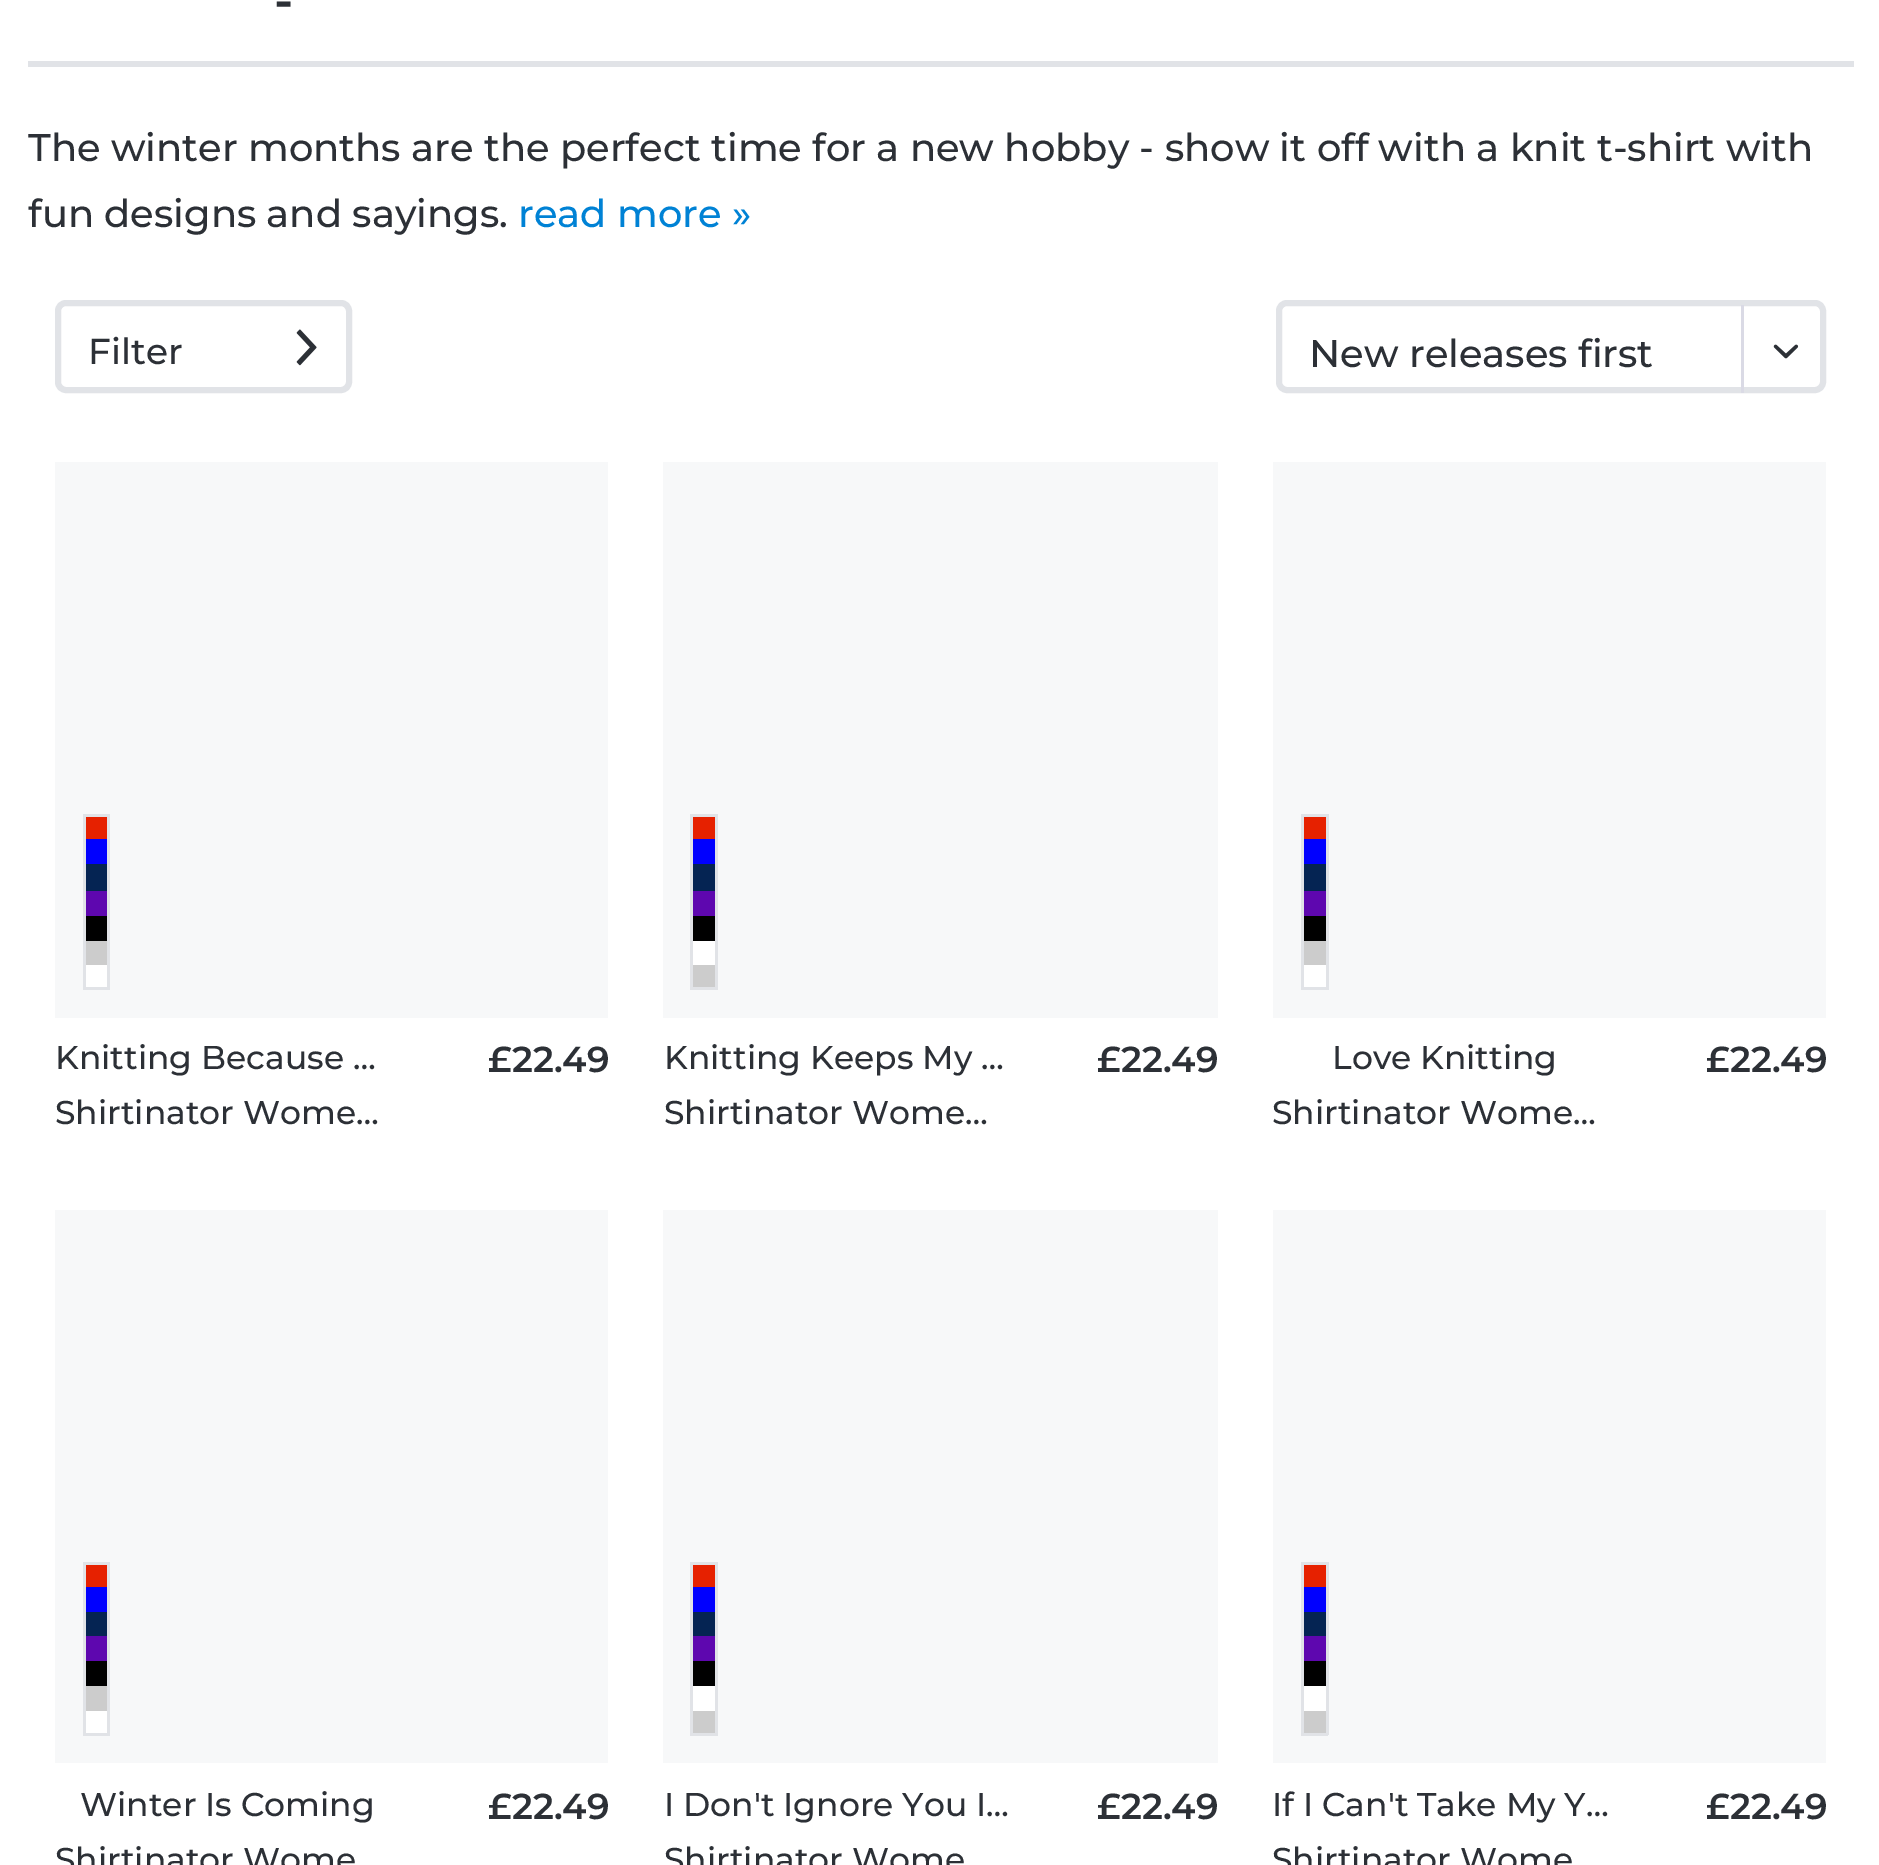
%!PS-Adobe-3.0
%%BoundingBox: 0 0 1879 1865
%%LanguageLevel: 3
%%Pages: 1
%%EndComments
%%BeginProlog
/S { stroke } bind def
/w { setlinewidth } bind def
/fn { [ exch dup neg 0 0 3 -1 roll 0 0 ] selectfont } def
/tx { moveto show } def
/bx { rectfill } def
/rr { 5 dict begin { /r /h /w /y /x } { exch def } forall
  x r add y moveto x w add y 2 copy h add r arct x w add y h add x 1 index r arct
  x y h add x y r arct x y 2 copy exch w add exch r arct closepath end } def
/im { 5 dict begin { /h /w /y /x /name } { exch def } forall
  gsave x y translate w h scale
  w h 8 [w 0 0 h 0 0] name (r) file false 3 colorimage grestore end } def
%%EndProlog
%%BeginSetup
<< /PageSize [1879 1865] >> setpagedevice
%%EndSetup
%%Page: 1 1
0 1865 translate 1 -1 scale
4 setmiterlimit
1 setgray
0 0 1879 1865 bx
/Montserrat-SemiBold 50 fn
0.173 0.188 0.212 setrgbcolor
(-) 274 18 tx
0.882 0.89 0.906 setrgbcolor
28 61 1826 6 bx
/Montserrat-Medium 38.5 fn
0.173 0.188 0.212 setrgbcolor
(The winter months are the perfect time for a new hobby - show it off with a knit t-shirt with) 28 161 tx
(fun designs and sayings.) 28 227 tx
0 0.51 0.835 setrgbcolor
(read more ») 518 227 tx
0.882 0.89 0.906 setrgbcolor
6 w
58 303 291 87 8 rr S
/Montserrat-Medium 36 fn
0.173 0.188 0.212 setrgbcolor
(Filter) 88 364 tx
(image0.raw) 296 329 21 37 im
0.882 0.89 0.906 setrgbcolor
1279 303 544 87 8 rr S
/Montserrat-Medium 38.5 fn
0.173 0.188 0.212 setrgbcolor
(New releases first) 1309 367 tx
0.855 0.855 0.898 setrgbcolor
1741 305 3 88 bx
(image1.raw) 1773 344 26 15 im
0.969 0.973 0.976 setrgbcolor
55 462 553 556 bx
0.902 0.129 0 setrgbcolor
86 817 21 22 bx
0.882 0.89 0.906 setrgbcolor
83 814 27 3 bx
107 814 3 25 bx
83 814 3 25 bx
1 setgray
86 965 21 22 bx
0.882 0.89 0.906 setrgbcolor
107 839 3 151 bx
83 987 27 3 bx
83 839 3 151 bx
0 0 1 setrgbcolor
86 839 21 25 bx
0.02 0.141 0.325 setrgbcolor
86 864 21 27 bx
0.369 0.027 0.686 setrgbcolor
86 891 21 25 bx
0 setgray
86 916 21 25 bx
0.8 setgray
86 941 21 24 bx
/Montserrat-Medium 33 fn
0.173 0.188 0.212 setrgbcolor
(Knitting Because …) 55 1069 tx
(Shirtinator Wome…) 55 1124 tx
/Montserrat-SemiBold 36 fn
(£22.49) 488 1072 tx
0.969 0.973 0.976 setrgbcolor
663 462 555 556 bx
0.902 0.129 0 setrgbcolor
693 817 22 22 bx
0.882 0.89 0.906 setrgbcolor
690 814 28 3 bx
715 814 3 25 bx
690 814 3 25 bx
0.8 setgray
693 965 22 22 bx
0.882 0.89 0.906 setrgbcolor
715 839 3 151 bx
690 987 28 3 bx
690 839 3 151 bx
0 0 1 setrgbcolor
693 839 22 25 bx
0.02 0.141 0.325 setrgbcolor
693 864 22 27 bx
0.369 0.027 0.686 setrgbcolor
693 891 22 25 bx
0 setgray
693 916 22 25 bx
1 setgray
693 941 22 24 bx
/Montserrat-Medium 33 fn
0.173 0.188 0.212 setrgbcolor
(Knitting Keeps My …) 664 1069 tx
(Shirtinator Wome…) 664 1124 tx
/Montserrat-SemiBold 36 fn
(£22.49) 1097 1072 tx
0.969 0.973 0.976 setrgbcolor
1273 462 553 556 bx
0.902 0.129 0 setrgbcolor
1304 817 22 22 bx
0.882 0.89 0.906 setrgbcolor
1301 814 27 3 bx
1326 814 3 25 bx
1301 814 3 25 bx
1 setgray
1304 965 22 22 bx
0.882 0.89 0.906 setrgbcolor
1326 839 3 151 bx
1301 987 27 3 bx
1301 839 3 151 bx
0 0 1 setrgbcolor
1304 839 22 25 bx
0.02 0.141 0.325 setrgbcolor
1304 864 22 27 bx
0.369 0.027 0.686 setrgbcolor
1304 891 22 25 bx
0 setgray
1304 916 22 25 bx
0.8 setgray
1304 941 22 24 bx
/Montserrat-Medium 33 fn
0.173 0.188 0.212 setrgbcolor
(Love Knitting) 1332 1069 tx
(Shirtinator Wome…) 1272 1124 tx
/Montserrat-SemiBold 36 fn
(£22.49) 1706 1072 tx
0.969 0.973 0.976 setrgbcolor
55 1210 553 553 bx
0.902 0.129 0 setrgbcolor
86 1565 21 22 bx
0.882 0.89 0.906 setrgbcolor
83 1562 27 3 bx
107 1562 3 25 bx
83 1562 3 25 bx
1 setgray
86 1711 21 22 bx
0.882 0.89 0.906 setrgbcolor
107 1587 3 148 bx
83 1733 27 3 bx
83 1587 3 148 bx
0 0 1 setrgbcolor
86 1587 21 25 bx
0.02 0.141 0.325 setrgbcolor
86 1612 21 24 bx
0.369 0.027 0.686 setrgbcolor
86 1636 21 25 bx
0 setgray
86 1661 21 25 bx
0.8 setgray
86 1686 21 25 bx
/Montserrat-Medium 33 fn
0.173 0.188 0.212 setrgbcolor
(Winter Is Coming) 80 1816 tx
(Shirtinator Wome) 55 1871 tx
/Montserrat-SemiBold 36 fn
(£22.49) 488 1819 tx
0.969 0.973 0.976 setrgbcolor
663 1210 555 553 bx
0.902 0.129 0 setrgbcolor
693 1565 22 22 bx
0.882 0.89 0.906 setrgbcolor
690 1562 28 3 bx
715 1562 3 25 bx
690 1562 3 25 bx
0.8 setgray
693 1711 22 22 bx
0.882 0.89 0.906 setrgbcolor
715 1587 3 148 bx
690 1733 28 3 bx
690 1587 3 148 bx
0 0 1 setrgbcolor
693 1587 22 25 bx
0.02 0.141 0.325 setrgbcolor
693 1612 22 24 bx
0.369 0.027 0.686 setrgbcolor
693 1636 22 25 bx
0 setgray
693 1661 22 25 bx
1 setgray
693 1686 22 25 bx
/Montserrat-Medium 33 fn
0.173 0.188 0.212 setrgbcolor
(I Don't Ignore You I…) 664 1816 tx
(Shirtinator Wome) 664 1871 tx
/Montserrat-SemiBold 36 fn
(£22.49) 1097 1819 tx
0.969 0.973 0.976 setrgbcolor
1273 1210 553 553 bx
0.902 0.129 0 setrgbcolor
1304 1565 22 22 bx
0.882 0.89 0.906 setrgbcolor
1301 1562 27 3 bx
1326 1562 3 25 bx
1301 1562 3 25 bx
0.8 setgray
1304 1711 22 22 bx
0.882 0.89 0.906 setrgbcolor
1326 1587 3 148 bx
1301 1733 27 3 bx
1301 1587 3 148 bx
0 0 1 setrgbcolor
1304 1587 22 25 bx
0.02 0.141 0.325 setrgbcolor
1304 1612 22 24 bx
0.369 0.027 0.686 setrgbcolor
1304 1636 22 25 bx
0 setgray
1304 1661 22 25 bx
1 setgray
1304 1686 22 25 bx
/Montserrat-Medium 33 fn
0.173 0.188 0.212 setrgbcolor
(If I Can't Take My Y…) 1272 1816 tx
(Shirtinator Wome) 1272 1871 tx
/Montserrat-SemiBold 36 fn
(£22.49) 1706 1819 tx
showpage
%%EOF
